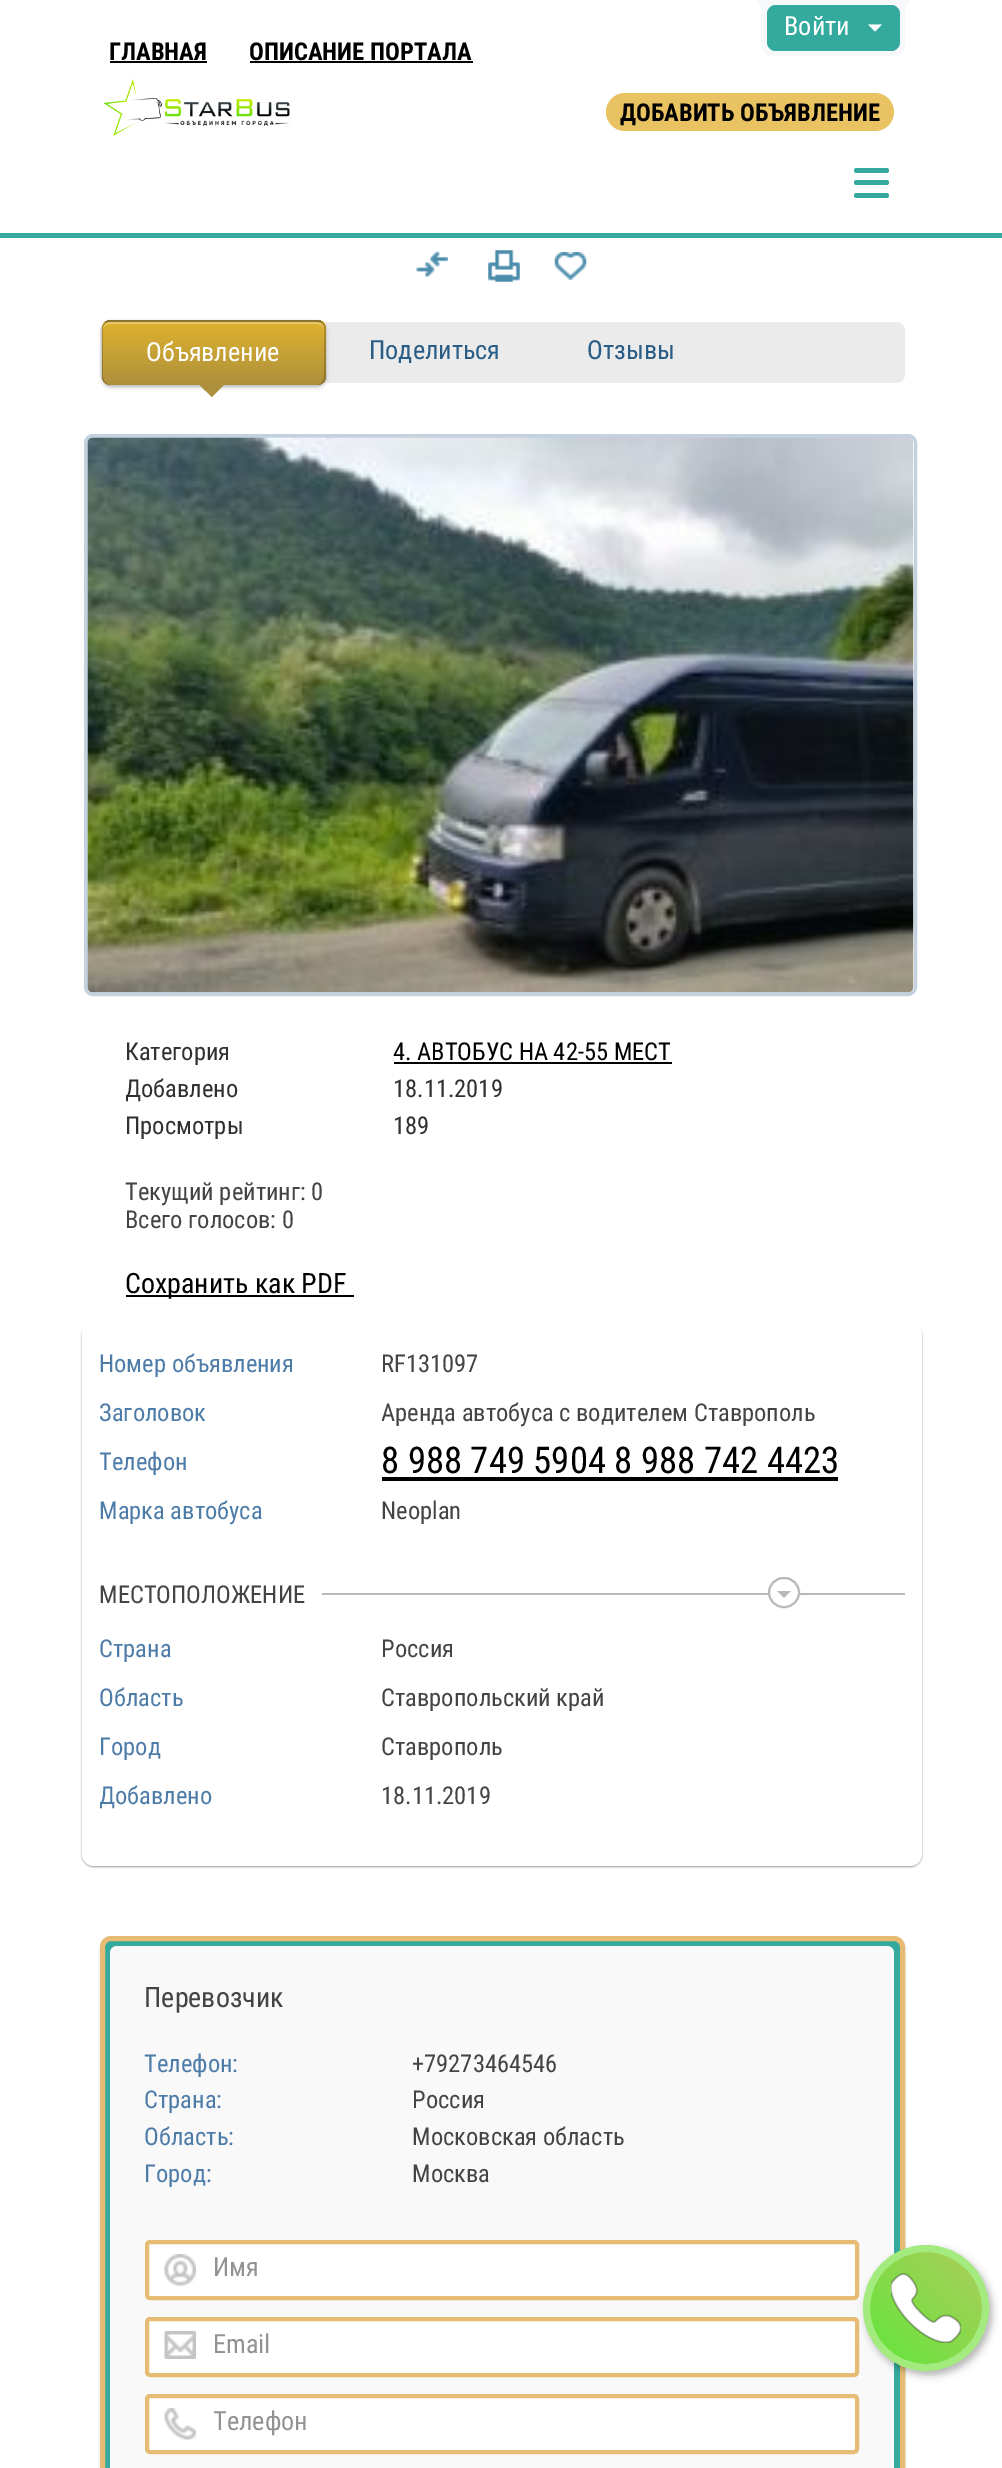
%!PS-Adobe-3.0
%%BoundingBox: 0 0 1002 2468
%%LanguageLevel: 3
%%Pages: 1
%%EndComments
%%BeginProlog
/m { moveto } bind def
/l { lineto } bind def
/c { curveto } bind def
/h { closepath } bind def
/f { fill } bind def
/S { stroke } bind def
/q { gsave } bind def
/Q { grestore } bind def
/w { setlinewidth } bind def
/fn { [ exch dup neg 0 0 3 -1 roll 0 0 ] selectfont } def
/tx { moveto show } def
/bx { rectfill } def
/al { dup .setfillconstantalpha .setstrokeconstantalpha } def
/ci { newpath 0 360 arc closepath } def
/rr { 5 dict begin { /r /h /w /y /x } { exch def } forall
  x r add y moveto x w add y 2 copy h add r arct x w add y h add x 1 index r arct
  x y h add x y r arct x y 2 copy exch w add exch r arct closepath end } def
/sh { 12 dict begin { /a /b /q /h /w /y /x } { exch def } forall gsave /was 0 def
  9 -2 -9 { dup b mul 4 div /e exch def 1 sub .425 mul 2.718 exch exp 1 add a .99 .min exch div /now exch def
    1 1 now sub 1 was sub div sub al /was now def
    w h .min e 2 mul add 0 gt { x e sub y e sub w e 2 mul add h e 2 mul add
      q e add b .6 mul add w h .min 2 div e add .min 0 .max rr fill } if } for grestore end } def
/im { 5 dict begin { /h /w /y /x /name } { exch def } forall
  gsave x y translate w h scale
  w h 8 [w 0 0 h 0 0] name (r) file false 3 colorimage grestore end } def
%%EndProlog
%%BeginSetup
<< /PageSize [1002 2468] /PageUsesTransparency true >> setpagedevice
%%EndSetup
%%Page: 1 1
0 .pushpdf14devicefilter
0 2468 translate 1 -1 scale
4 setmiterlimit
1 setgray
0 0 1002 2468 bx
0.204 0.667 0.62 setrgbcolor
0 233 1002 5 bx
0.965 0.973 0.976 setrgbcolor
761 0 m 905 0 l 905 45 l 905 51 900 56 894 56 c 772 56 l 766 56 761 51 761 45 c h f
761 0 m 761 7 l 756 0 l h f
905 0 m 910 0 l 905 7 l h f
0.204 0.667 0.62 setrgbcolor
767 5 133 46 9 rr f
/RobotoCondensed-Regular 26.25 fn
1 setgray
(Войти) 784 35 tx
868 24.5 m 882 24.5 l 875 31.5 l h f
/RobotoCondensed-Bold 24.5 fn
0 setgray
(ГЛАВНАЯ) 109 60 tx
110 61 97 2 bx
(ОПИСАНИЕ ПОРТАЛА) 249 60 tx
250 61 223 2 bx
(image0.raw) 103 79 187 57 im
0.914 0.761 0.384 setrgbcolor
606 93 288 38 19 rr f
0 setgray
(ДОБАВИТЬ ОБЪЯВЛЕНИЕ) 620 121 tx
0.204 0.667 0.62 setrgbcolor
854 168 35 5 2.5 rr f
854 180 35 5 2.5 rr f
854 193 35 5 2.5 rr f
0.988 setgray
0 238 1002 2 bx
(image1.raw) 416 251 32 26 im
(image2.raw) 488 250 32 32 im
(image3.raw) 554 252 33 28 im
0.922 setgray
100 322 805 61 9 rr f
0 setgray
102 322 224 65 9 2 0.3 sh
q
102 320 224 65 9 rr clip newpath
q 102 320 m 326 320 l 326 322 l 102 322 l h clip newpath
<< /ShadingType 2 /ColorSpace /DeviceRGB /Coords [214 259 214 322] /Extend [true true] /Function << /FunctionType 2 /Domain [0 1] /C0 [0.875 0.698 0.18] /C1 [0.678 0.565 0.235] /N 1 >> >> shfill Q
q 102 322 m 326 322 l 326 376 l 326 381 322 385 317 385 c 111 385 l 106 385 102 381 102 376 c h clip newpath
<< /ShadingType 2 /ColorSpace /DeviceRGB /Coords [214 322 214 385] /Extend [true true] /Function << /FunctionType 2 /Domain [0 1] /C0 [0.875 0.698 0.18] /C1 [0.678 0.565 0.235] /N 1 >> >> shfill Q
Q
0.3 al
1 setgray
110 324 m 317 324 l 320 324 323 326 324 329 c 324 325 321 322 317 322 c 110 322 l 106 322 103 325 103 329 c 104 326 107 324 110 324 c h f
0.2 al
0 setgray
110 320 m 317 320 l 322 320 326 324 326 329 c 326 376 l 326 381 322 385 317 385 c 110 385 l 105 385 102 381 102 376 c 102 329 l 102 324 105 320 110 320 c h 110 322 m 317 322 l 321 322 324 325 324 329 c 324 376 l 324 381 321 385 317 385 c 110 385 l 106 385 103 381 103 376 c 103 329 l 103 325 106 322 110 322 c h eofill
/RobotoCondensed-Regular 26.25 fn
1 al
1 setgray
(Объявление) 146 361 tx
0.678 0.565 0.235 setrgbcolor
199.5 385 m 224 385 l 212 397 l h f
0.165 0.365 0.525 setrgbcolor
(Поделиться) 369 359 tx
(Отзывы) 587 359 tx
0.769 0.82 0.875 setrgbcolor
4 w
86 436 829 558 7 rr S
0.973 0.988 1 setrgbcolor
88 438 826 554 5 rr f
(image4.raw) 87 437 827 556 im
/RobotoCondensed-Regular 24.5 fn
0.188 setgray
(Категория) 125 1060 tx
0 setgray
(4. АВТОБУС НА 42-55 МЕСТ) 393 1060 tx
394 1062 278 2 bx
q
126 1020 753 146 rectclip
0.188 setgray
(Добавлено) 125 1097 tx
Q
0.188 setgray
(18.11.2019) 393 1097 tx
(Просмотры) 125 1134 tx
(189) 393 1134 tx
0.267 setgray
(Текущий рейтинг: 0) 125 1200 tx
(Всего голосов: 0) 125 1228 tx
0 setgray
126 1295 228 2 bx
/RobotoCondensed-Regular 28 fn
(Сохранить как PDF) 125 1293 tx
82 1325 840 542 12 1 0.4 sh
1 setgray
82 1323 840 543 12 rr f
/RobotoCondensed-Regular 24.5 fn
0.306 0.486 0.663 setrgbcolor
(Номер объявления) 99 1372 tx
0.267 setgray
(RF131097) 381 1372 tx
0.306 0.486 0.663 setrgbcolor
(Заголовок) 99 1421 tx
q
382 1390 523 49 rectclip
0.267 setgray
(Аренда автобуса с водителем Ставрополь) 381 1421 tx
Q
q
100 1439 282 42 rectclip
(Телефон) 99 1470 tx
Q
/RobotoCondensed-Regular 36.75 fn
0 setgray
(8 988 749 5904 8 988 742 4423) 381 1473 tx
382 1477 456 4 bx
/RobotoCondensed-Regular 24.5 fn
0.306 0.486 0.663 setrgbcolor
(Марка автобуса) 99 1519 tx
0.267 setgray
(Neoplan) 381 1519 tx
(МЕСТОПОЛОЖЕНИЕ) 99 1603 tx
0.725 setgray
322 1593 583 2 bx
1 setgray
769 1578 30 29 14.5 rr q f Q
0.725 setgray
2 w
S
777 1591 m 791 1591 l 784 1598 l h f
0.306 0.486 0.663 setrgbcolor
(Страна) 99 1657 tx
0.267 setgray
(Россия) 381 1657 tx
0.306 0.486 0.663 setrgbcolor
(Область) 99 1706 tx
0.267 setgray
(Ставропольский край) 381 1706 tx
0.306 0.486 0.663 setrgbcolor
(Город) 99 1755 tx
0.267 setgray
(Ставрополь) 381 1755 tx
q
100 1773 282 42 rectclip
0.306 0.486 0.663 setrgbcolor
(Добавлено) 99 1804 tx
Q
(18.11.2019) 381 1804 tx
0 setgray
102 1941 801 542 9 2 0.5 sh
0.204 0.667 0.62 setrgbcolor
102.5 1938.5 800 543 8.5 rr q f Q
0.902 0.737 0.455 setrgbcolor
5 w
S
0.976 setgray
117 1946 m 887 1946 l 891 1946 894 1949 894 1953 c 894 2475 l 110 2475 l 110 1953 l 110 1949 113 1946 117 1946 c h f
/RobotoCondensed-Regular 28 fn
0.267 setgray
(Перевозчик) 144 2007 tx
/RobotoCondensed-Regular 24.5 fn
0.306 0.486 0.663 setrgbcolor
(Телефон:) 144 2072 tx
0.267 setgray
(+79273464546) 412 2072 tx
0.306 0.486 0.663 setrgbcolor
(Страна:) 144 2108 tx
0.267 setgray
(Россия) 412 2108 tx
0.306 0.486 0.663 setrgbcolor
(Область:) 144 2145 tx
0.267 setgray
(Московская область) 412 2145 tx
0.306 0.486 0.663 setrgbcolor
(Город:) 144 2182 tx
0.267 setgray
(Москва) 412 2182 tx
1 setgray
147 2242 710 56 3 rr q f Q
0.902 0.737 0.455 setrgbcolor
4 w
S
(image5.raw) 164 2254 32 32 im
/RobotoCondensed-Regular 26.25 fn
0.573 setgray
(Имя) 213 2276 tx
1 setgray
147 2319 710 56 3 rr q f Q
0.902 0.737 0.455 setrgbcolor
S
(image6.raw) 164 2331 32 28 im
0.573 setgray
(Email) 213 2353 tx
1 setgray
147 2396 710 56 3 rr q f Q
0.902 0.737 0.455 setrgbcolor
S
(image7.raw) 164 2408 32 32 im
q
214 2405 624 31 rectclip
0.573 setgray
(Телефон) 213 2430 tx
Q
0 setgray
866 2249 126 126 63 4 0.3 sh
q 926 2308 59.5 ci clip newpath
<< /ShadingType 2 /ColorSpace /DeviceRGB /Coords [863 2371 989 2245] /Extend [true true] /Function << /FunctionType 2 /Domain [0 1] /C0 [0.369 0.906 0.224] /C1 [0.694 0.796 0.361] /N 1 >> >> shfill Q
0.639 0.922 0.498 setrgbcolor
7 w
926 2308 59.5 ci S
(image8.raw) 891 2273 70 70 im
.poppdf14devicefilter showpage
%%EOF
